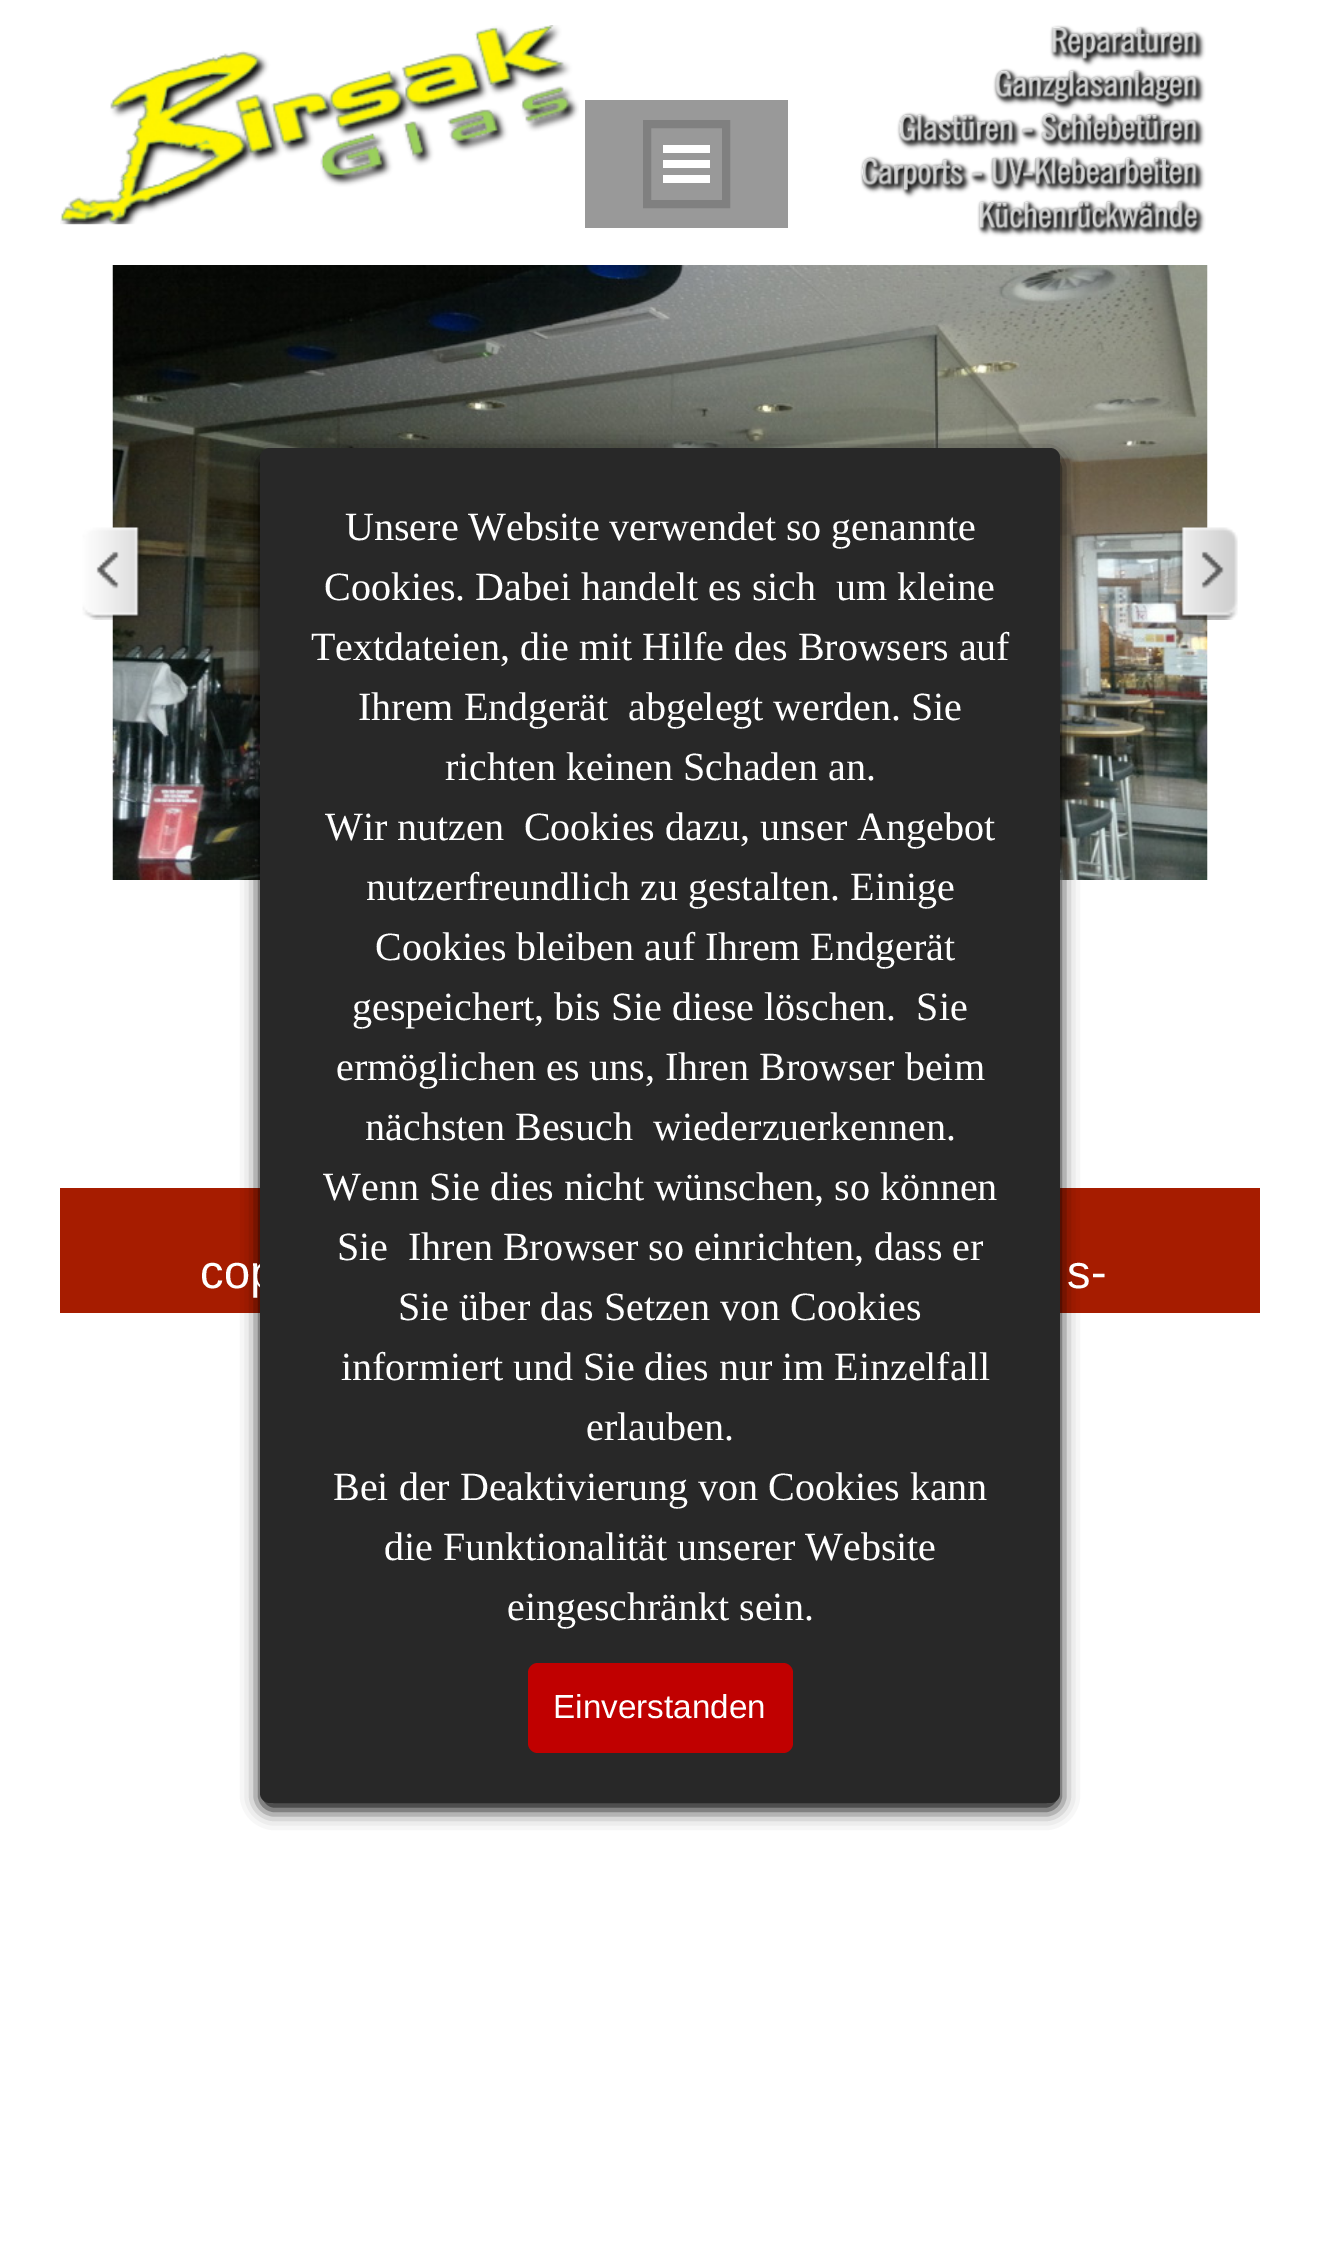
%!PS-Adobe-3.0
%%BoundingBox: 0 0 1320 2250
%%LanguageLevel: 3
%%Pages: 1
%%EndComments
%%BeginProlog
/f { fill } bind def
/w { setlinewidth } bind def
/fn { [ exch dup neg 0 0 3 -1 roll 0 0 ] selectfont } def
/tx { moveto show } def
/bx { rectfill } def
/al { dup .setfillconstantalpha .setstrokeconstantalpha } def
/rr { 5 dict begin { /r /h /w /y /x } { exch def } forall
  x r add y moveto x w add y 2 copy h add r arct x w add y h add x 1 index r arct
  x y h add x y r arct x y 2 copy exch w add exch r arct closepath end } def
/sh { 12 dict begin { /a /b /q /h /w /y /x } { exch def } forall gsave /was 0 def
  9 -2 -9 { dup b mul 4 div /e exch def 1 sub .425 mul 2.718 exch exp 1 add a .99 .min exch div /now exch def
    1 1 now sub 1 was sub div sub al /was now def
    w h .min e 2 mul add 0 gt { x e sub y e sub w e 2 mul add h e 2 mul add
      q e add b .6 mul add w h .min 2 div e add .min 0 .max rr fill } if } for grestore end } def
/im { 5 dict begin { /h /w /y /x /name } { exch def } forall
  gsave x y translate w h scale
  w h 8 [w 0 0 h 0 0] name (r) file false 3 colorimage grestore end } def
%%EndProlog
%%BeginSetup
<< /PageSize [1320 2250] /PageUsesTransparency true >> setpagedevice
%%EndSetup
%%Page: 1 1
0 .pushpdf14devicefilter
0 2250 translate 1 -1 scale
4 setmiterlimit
1 setgray
0 0 1320 2250 bx
(image2.raw) 112 265 1096 615 im
0.651 0.11 0 setrgbcolor
60 1188 1200 125 bx
0 setgray
260 455 800 1355 10 9 1 sh
/LiberationSans-Regular 47 fn
1 setgray
(cop) 200 1288 tx
0.157 setgray
260 448 800 1355 10 rr f
/LiberationSerif-Regular 40 fn
1 setgray
(Unsere Website verwendet so genannte) 345 540 tx
(Cookies. Dabei handelt es sich  um kleine) 324 600 tx
(Textdateien, die mit Hilfe des Browsers auf) 311 660 tx
(Ihrem Endgerät  abgelegt werden. Sie) 358 720 tx
(richten keinen Schaden an.) 445 780 tx
(Wir nutzen  Cookies dazu, unser Angebot) 325 840 tx
(nutzerfreundlich zu gestalten. Einige) 366 900 tx
(Cookies bleiben auf Ihrem Endgerät) 375 960 tx
(gespeichert, bis Sie diese löschen.  Sie) 352 1020 tx
(ermöglichen es uns, Ihren Browser beim) 336 1080 tx
(nächsten Besuch  wiederzuerkennen.) 365 1140 tx
(Wenn Sie dies nicht wünschen, so können) 323 1200 tx
(Sie  Ihren Browser so einrichten, dass er) 337 1260 tx
(Sie über das Setzen von Cookies) 398 1320 tx
(informiert und Sie dies nur im Einzelfall) 341 1380 tx
(erlauben.) 586 1440 tx
(Bei der Deaktivierung von Cookies kann) 333 1500 tx
(die Funktionalität unserer Website) 384 1560 tx
(eingeschränkt sein.) 507 1620 tx
0.753 0 0 setrgbcolor
528 1663 265 90 10 rr f
/LiberationSans-Regular 33.25 fn
1 setgray
(Einverstanden) 553 1718 tx
(image0.raw) 60 25 519 200 im
0.6 setgray
585 100 203 128 bx
0.502 setgray
8 w
647 124 79 80 rectstroke
1 setgray
663 145 47 8 bx
663 160 47 8 bx
663 175 47 8 bx
(image1.raw) 860 25 346 212 im
(image3.raw) 82 527 61 93 im
(image4.raw) 1177 527 61 93 im
/LiberationSans-Regular 47 fn
(s-) 1067 1288 tx
.poppdf14devicefilter showpage
%%EOF
